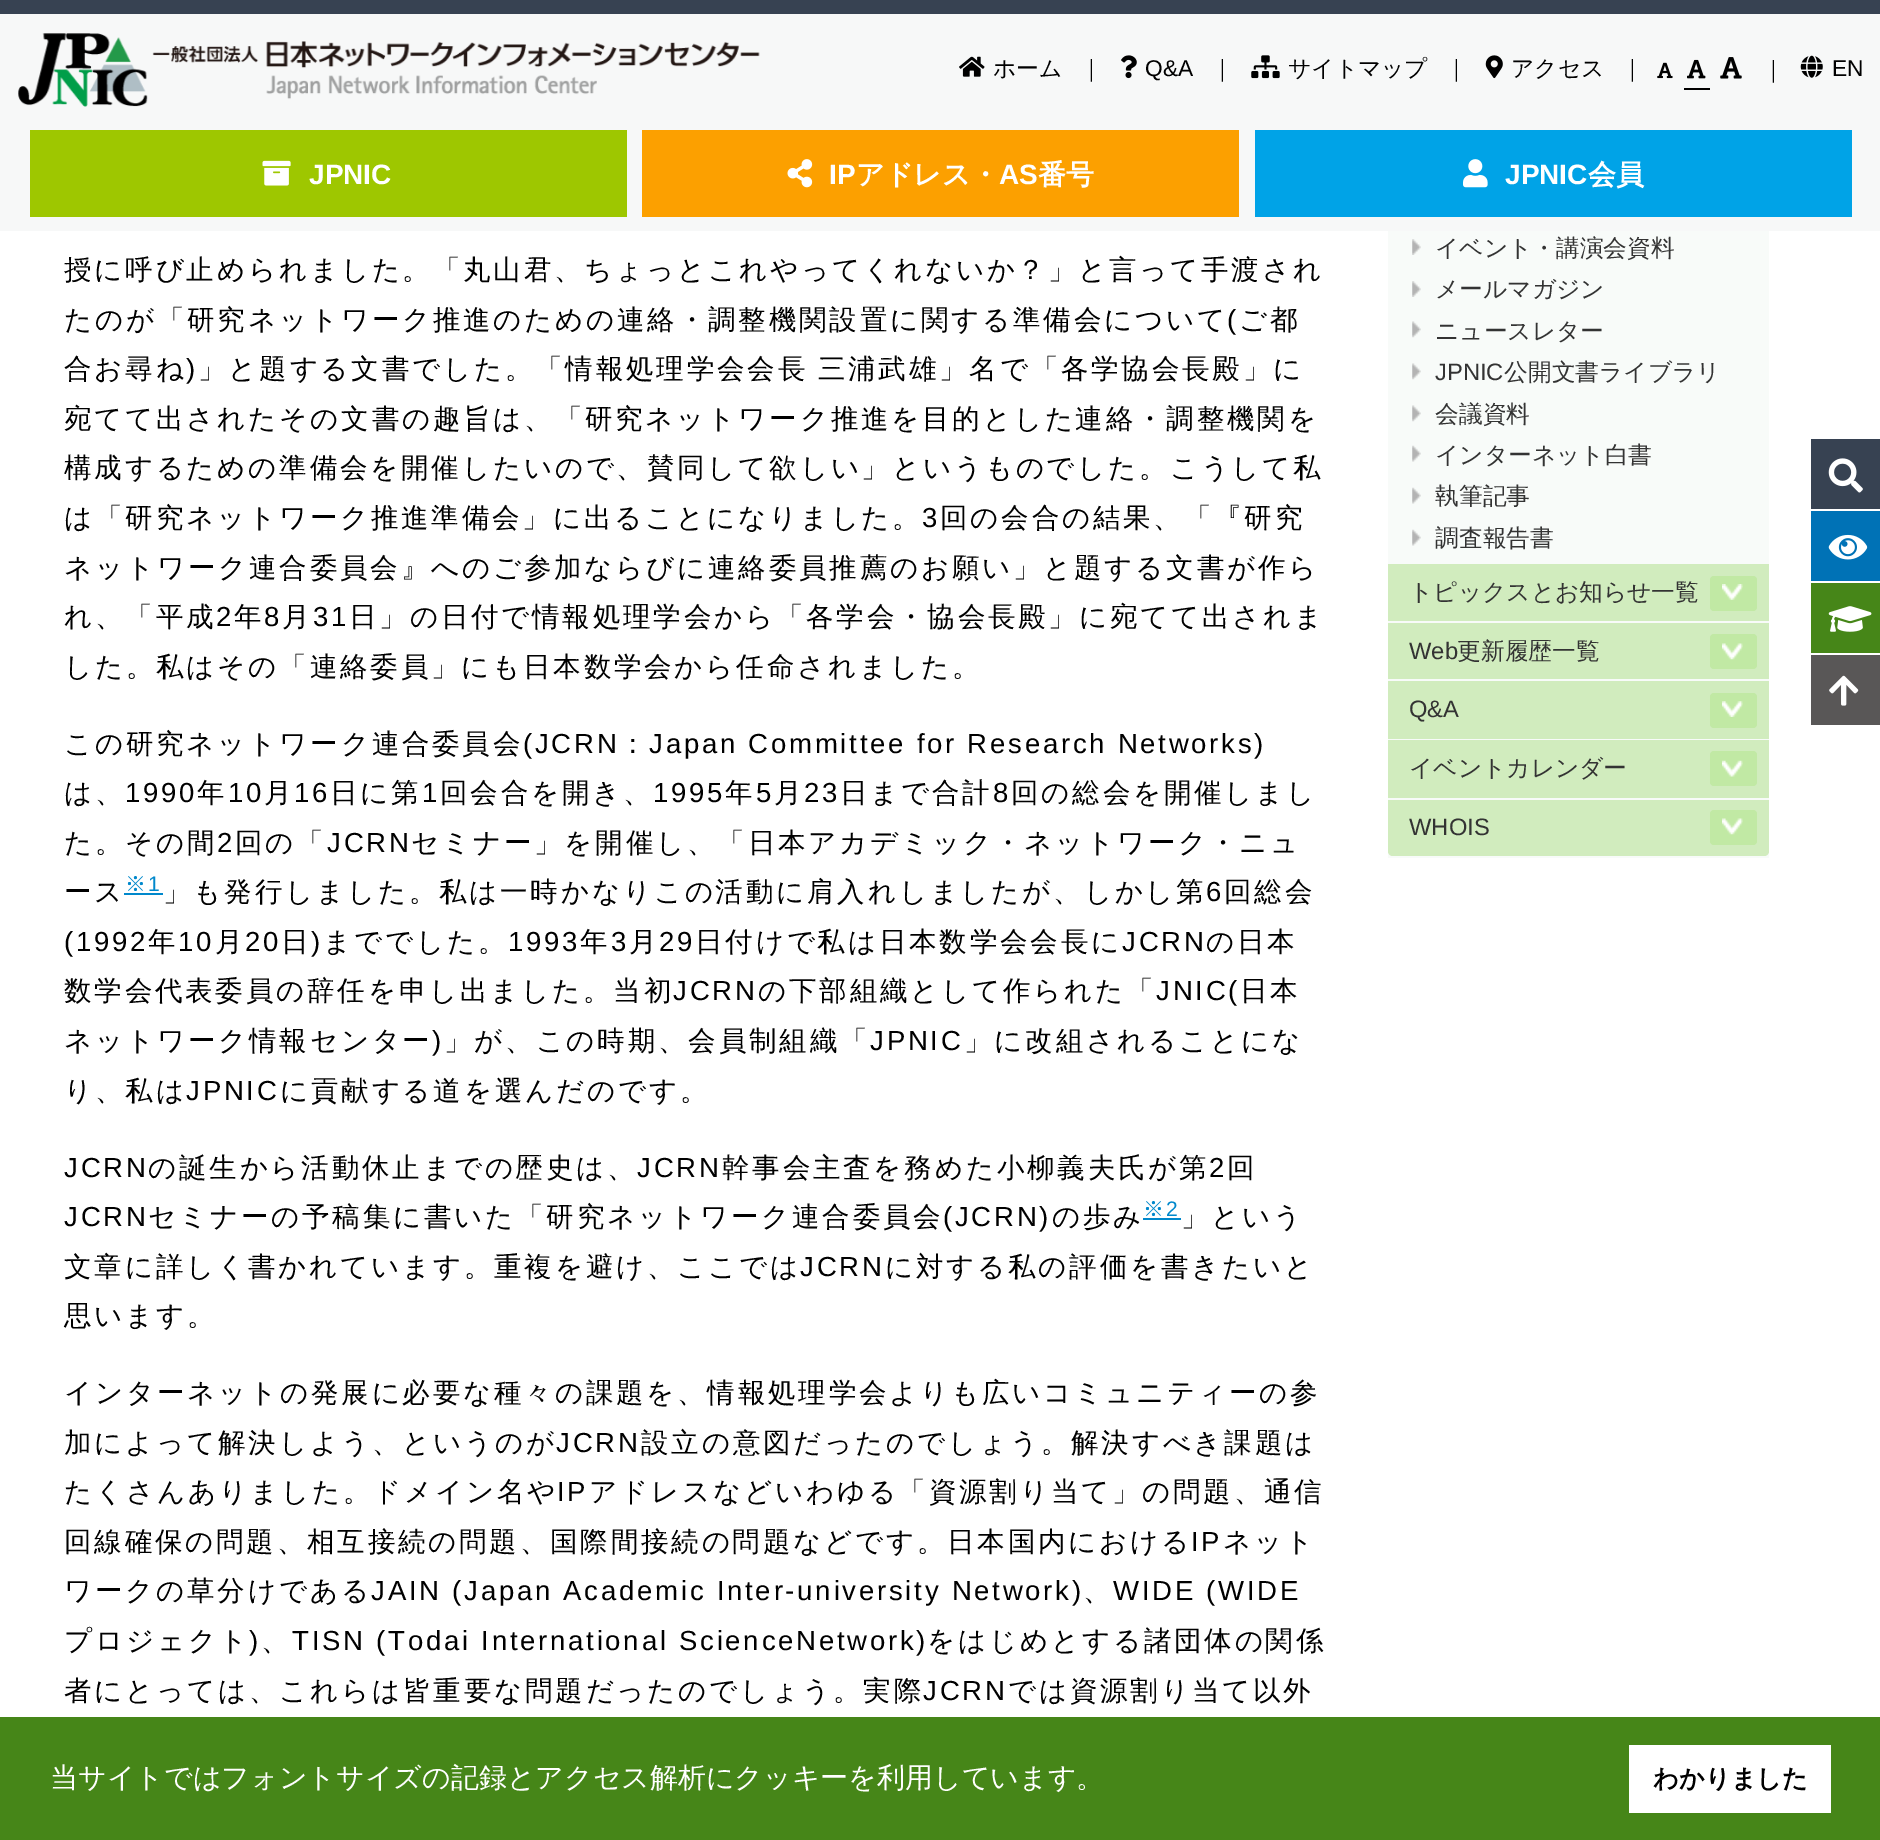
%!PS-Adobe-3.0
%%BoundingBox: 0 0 1880 1840
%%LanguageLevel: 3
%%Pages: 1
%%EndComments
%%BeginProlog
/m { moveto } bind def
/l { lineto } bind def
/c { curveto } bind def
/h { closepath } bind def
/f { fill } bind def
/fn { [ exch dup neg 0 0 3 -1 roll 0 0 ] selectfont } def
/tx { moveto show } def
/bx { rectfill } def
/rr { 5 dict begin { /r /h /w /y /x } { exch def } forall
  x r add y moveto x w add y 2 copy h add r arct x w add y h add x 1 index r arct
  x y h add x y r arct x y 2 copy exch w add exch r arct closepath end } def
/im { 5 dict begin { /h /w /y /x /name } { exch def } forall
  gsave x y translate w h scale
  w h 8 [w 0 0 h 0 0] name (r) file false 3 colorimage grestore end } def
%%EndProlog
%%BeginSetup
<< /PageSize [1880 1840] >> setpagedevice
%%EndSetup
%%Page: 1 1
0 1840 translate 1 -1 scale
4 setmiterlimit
1 setgray
0 0 1880 1840 bx
0.969 0.973 0.973 setrgbcolor
0 14 1880 217 bx
0.216 0.259 0.322 setrgbcolor
0 0 1880 14 bx
(image0.raw) 18 33 742 74 im
(image1.raw) 959 56 26 21 im
/WenQuanYiZenHei-Medium 22.75 fn
0 setgray
(ホーム) 993 76 tx
(｜) 1080 76 tx
(image2.raw) 1121 55 16 24 im
/LiberationSans-Regular 22.75 fn
(Q&A) 1145 76 tx
/WenQuanYiZenHei-Medium 22.75 fn
(｜) 1211 76 tx
(image3.raw) 1251 55 29 24 im
(サイトマップ) 1288 76 tx
(｜) 1445 76 tx
(image4.raw) 1485 55 18 24 im
(アクセス) 1511 76 tx
(｜) 1621 76 tx
(image5.raw) 1657 62 16 17 im
1684 88 26 2 bx
(image6.raw) 1687 59 19 20 im
(image7.raw) 1720 57 22 22 im
(｜) 1762 77 tx
(image8.raw) 1800 55 23 23 im
/LiberationSans-Regular 22.75 fn
(EN) 1832 76 tx
0.62 0.78 0 setrgbcolor
30 130 597 87 bx
(image9.raw) 262 160 29 26 im
/LiberationSans-Bold 28 fn
1 setgray
(JPNIC) 309 184 tx
0.988 0.627 0 setrgbcolor
642 130 597 87 bx
(image10.raw) 787 159 26 29 im
1 setgray
(IP) 829 184 tx
/WenQuanYiZenHei-Bold 28 fn
(アドレス・) 856 184 tx
/LiberationSans-Bold 28 fn
(AS) 999 184 tx
/WenQuanYiZenHei-Bold 28 fn
(番号) 1038 184 tx
0 0.639 0.906 setrgbcolor
1255 130 597 87 bx
(image11.raw) 1463 159 25 29 im
/LiberationSans-Bold 28 fn
1 setgray
(JPNIC) 1505 184 tx
/WenQuanYiZenHei-Bold 28 fn
(会員) 1588 184 tx
/WenQuanYiZenHei-Medium 27.55 fn
0 setgray
64 279 m 2.75 0 (授に呼び止められました。「丸山君、ちょっとこれやってくれないか？」と言って手渡され) ashow
64 329 m 2.75 0 (たのが「研究ネットワーク推進のための連絡・調整機関設置に関する準備会について) ashow
/LiberationSans-Regular 27.55 fn
1227 329 m 2.75 0 (\() ashow
/WenQuanYiZenHei-Medium 27.55 fn
1239 329 m 2.75 0 (ご都) ashow
64 378 m 2.75 0 (合お尋ね) ashow
/LiberationSans-Regular 27.55 fn
186 378 m 2.75 0 (\)) ashow
/WenQuanYiZenHei-Medium 27.55 fn
198 378 m -1 0 32 2.75 0 (」と題する文書でした。「情報処理学会会長 三浦武雄」名で「各学協会長殿」に) awidthshow
64 428 m 2.75 0 (宛てて出されたその文書の趣旨は、「研究ネットワーク推進を目的とした連絡・調整機関を) ashow
64 477 m 2.75 0 (構成するための準備会を開催したいので、賛同して欲しい」というものでした。こうして私) ashow
64 527 m 2.75 0 (は「研究ネットワーク推進準備会」に出ることになりました。) ashow
/LiberationSans-Regular 27.55 fn
922 527 m 2.75 0 (3) ashow
/WenQuanYiZenHei-Medium 27.55 fn
940 527 m 2.75 0 (回の会合の結果、「『研究) ashow
64 577 m 2.75 0 (ネットワーク連合委員会』へのご参加ならびに連絡委員推薦のお願い」と題する文書が作ら) ashow
64 626 m 2.75 0 (れ、「平成) ashow
/LiberationSans-Regular 27.55 fn
216 626 m 2.75 0 (2) ashow
/WenQuanYiZenHei-Medium 27.55 fn
234 626 m 2.75 0 (年) ashow
/LiberationSans-Regular 27.55 fn
264 626 m 2.75 0 (8) ashow
/WenQuanYiZenHei-Medium 27.55 fn
282 626 m 2.75 0 (月) ashow
/LiberationSans-Regular 27.55 fn
313 626 m 2.75 0 (31) ashow
/WenQuanYiZenHei-Medium 27.55 fn
349 626 m 2.75 0 (日」の日付で情報処理学会から「各学会・協会長殿」に宛てて出されま) ashow
64 676 m 2.75 0 (した。私はその「連絡委員」にも日本数学会から任命されました。) ashow
64 753 m 2.75 0 (この研究ネットワーク連合委員会) ashow
/LiberationSans-Regular 27.55 fn
523 753 m 2.75 0 (\(JCRN) ashow
/WenQuanYiZenHei-Medium 27.55 fn
619 753 m 2.75 0 (：) ashow
/LiberationSans-Regular 27.55 fn
649 753 m 2.75 0 (Japan Committee for Research Networks\)) ashow
/WenQuanYiZenHei-Medium 27.55 fn
64 802 m 2.75 0 (は、) ashow
/LiberationSans-Regular 27.55 fn
125 802 m 2.75 0 (1990) ashow
/WenQuanYiZenHei-Medium 27.55 fn
197 802 m 2.75 0 (年) ashow
/LiberationSans-Regular 27.55 fn
228 802 m 2.75 0 (10) ashow
/WenQuanYiZenHei-Medium 27.55 fn
264 802 m 2.75 0 (月) ashow
/LiberationSans-Regular 27.55 fn
294 802 m 2.75 0 (16) ashow
/WenQuanYiZenHei-Medium 27.55 fn
330 802 m 2.75 0 (日に第) ashow
/LiberationSans-Regular 27.55 fn
422 802 m 2.75 0 (1) ashow
/WenQuanYiZenHei-Medium 27.55 fn
440 802 m 2.75 0 (回会合を開き、) ashow
/LiberationSans-Regular 27.55 fn
653 802 m 2.75 0 (1995) ashow
/WenQuanYiZenHei-Medium 27.55 fn
725 802 m 2.75 0 (年) ashow
/LiberationSans-Regular 27.55 fn
756 802 m 2.75 0 (5) ashow
/WenQuanYiZenHei-Medium 27.55 fn
774 802 m 2.75 0 (月) ashow
/LiberationSans-Regular 27.55 fn
804 802 m 2.75 0 (23) ashow
/WenQuanYiZenHei-Medium 27.55 fn
840 802 m 2.75 0 (日まで合計) ashow
/LiberationSans-Regular 27.55 fn
993 802 m 2.75 0 (8) ashow
/WenQuanYiZenHei-Medium 27.55 fn
1011 802 m 2.75 0 (回の総会を開催しまし) ashow
64 852 m 2.75 0 (た。その間) ashow
/LiberationSans-Regular 27.55 fn
217 852 m 2.75 0 (2) ashow
/WenQuanYiZenHei-Medium 27.55 fn
235 852 m 2.75 0 (回の「) ashow
/LiberationSans-Regular 27.55 fn
327 852 m 2.75 0 (JCRN) ashow
/WenQuanYiZenHei-Medium 27.55 fn
411 852 m 2.75 0 (セミナー」を開催し、「日本アカデミック・ネットワーク・ニュ) ashow
64 901 m 2.75 0 (ース) ashow
/WenQuanYiZenHei-Medium 21 fn
0 0.533 0.8 setrgbcolor
125 891 m 2.75 0 (※) ashow
124 893 39 2 bx
/LiberationSans-Regular 21 fn
148 891 m 2.75 0 (1) ashow
/WenQuanYiZenHei-Medium 27.55 fn
0 setgray
163 901 m 2.75 0 (」も発行しました。私は一時かなりこの活動に肩入れしましたが、しかし第) ashow
/LiberationSans-Regular 27.55 fn
1206 901 m 2.75 0 (6) ashow
/WenQuanYiZenHei-Medium 27.55 fn
1224 901 m 2.75 0 (回総会) ashow
/LiberationSans-Regular 27.55 fn
64 951 m 2.75 0 (\(1992) ashow
/WenQuanYiZenHei-Medium 27.55 fn
148 951 m 2.75 0 (年) ashow
/LiberationSans-Regular 27.55 fn
178 951 m 2.75 0 (10) ashow
/WenQuanYiZenHei-Medium 27.55 fn
215 951 m 2.75 0 (月) ashow
/LiberationSans-Regular 27.55 fn
245 951 m 2.75 0 (20) ashow
/WenQuanYiZenHei-Medium 27.55 fn
281 951 m 2.75 0 (日) ashow
/LiberationSans-Regular 27.55 fn
311 951 m 2.75 0 (\)) ashow
/WenQuanYiZenHei-Medium 27.55 fn
323 951 m 2.75 0 (まででした。) ashow
/LiberationSans-Regular 27.55 fn
508 951 m 2.75 0 (1993) ashow
/WenQuanYiZenHei-Medium 27.55 fn
580 951 m 2.75 0 (年) ashow
/LiberationSans-Regular 27.55 fn
611 951 m 2.75 0 (3) ashow
/WenQuanYiZenHei-Medium 27.55 fn
629 951 m 2.75 0 (月) ashow
/LiberationSans-Regular 27.55 fn
659 951 m 2.75 0 (29) ashow
/WenQuanYiZenHei-Medium 27.55 fn
695 951 m 2.75 0 (日付けで私は日本数学会会長に) ashow
/LiberationSans-Regular 27.55 fn
1122 951 m 2.75 0 (JCRN) ashow
/WenQuanYiZenHei-Medium 27.55 fn
1206 951 m 2.75 0 (の日本) ashow
64 1000 m 2.75 0 (数学会代表委員の辞任を申し出ました。当初) ashow
/LiberationSans-Regular 27.55 fn
673 1000 m 2.75 0 (JCRN) ashow
/WenQuanYiZenHei-Medium 27.55 fn
758 1000 m 2.75 0 (の下部組織として作られた「) ashow
/LiberationSans-Regular 27.55 fn
1156 1000 m 2.75 0 (JNIC\() ashow
/WenQuanYiZenHei-Medium 27.55 fn
1240 1000 m 2.75 0 (日本) ashow
64 1050 m 2.75 0 (ネットワーク情報センター) ashow
/LiberationSans-Regular 27.55 fn
432 1050 m 2.75 0 (\)) ashow
/WenQuanYiZenHei-Medium 27.55 fn
444 1050 m 2.75 0 (」が、この時期、会員制組織「) ashow
/LiberationSans-Regular 27.55 fn
870 1050 m 2.75 0 (JPNIC) ashow
/WenQuanYiZenHei-Medium 27.55 fn
964 1050 m 2.75 0 (」に改組されることにな) ashow
64 1100 m 2.75 0 (り、私は) ashow
/LiberationSans-Regular 27.55 fn
186 1100 m 2.75 0 (JPNIC) ashow
/WenQuanYiZenHei-Medium 27.55 fn
280 1100 m 2.75 0 (に貢献する道を選んだのです。) ashow
/LiberationSans-Regular 27.55 fn
64 1177 m 2.75 0 (JCRN) ashow
/WenQuanYiZenHei-Medium 27.55 fn
148 1177 m 2.75 0 (の誕生から活動休止までの歴史は、) ashow
/LiberationSans-Regular 27.55 fn
637 1177 m 2.75 0 (JCRN) ashow
/WenQuanYiZenHei-Medium 27.55 fn
722 1177 m 2.75 0 (幹事会主査を務めた小柳義夫氏が第) ashow
/LiberationSans-Regular 27.55 fn
1209 1177 m 2.75 0 (2) ashow
/WenQuanYiZenHei-Medium 27.55 fn
1227 1177 m 2.75 0 (回) ashow
/LiberationSans-Regular 27.55 fn
64 1226 m 2.75 0 (JCRN) ashow
/WenQuanYiZenHei-Medium 27.55 fn
148 1226 m 2.75 0 (セミナーの予稿集に書いた「研究ネットワーク連合委員会) ashow
/LiberationSans-Regular 27.55 fn
943 1226 m 2.75 0 (\(JCRN\)) ashow
/WenQuanYiZenHei-Medium 27.55 fn
1052 1226 m 2.75 0 (の歩み) ashow
/WenQuanYiZenHei-Medium 21 fn
0 0.533 0.8 setrgbcolor
1143 1216 m 2.75 0 (※) ashow
1143 1218 38 2 bx
/LiberationSans-Regular 21 fn
1166 1216 m 2.75 0 (2) ashow
/WenQuanYiZenHei-Medium 27.55 fn
0 setgray
1181 1226 m 2.75 0 (」という) ashow
64 1276 m 2.75 0 (文章に詳しく書かれています。重複を避け、ここでは) ashow
/LiberationSans-Regular 27.55 fn
800 1276 m 2.75 0 (JCRN) ashow
/WenQuanYiZenHei-Medium 27.55 fn
885 1276 m 2.75 0 (に対する私の評価を書きたいと) ashow
64 1325 m 2.75 0 (思います。) ashow
64 1402 m 2.75 0 (インターネットの発展に必要な種々の課題を、情報処理学会よりも広いコミュニティーの参) ashow
64 1452 m 2.75 0 (加によって解決しよう、というのが) ashow
/LiberationSans-Regular 27.55 fn
556 1452 m 2.75 0 (JCRN) ashow
/WenQuanYiZenHei-Medium 27.55 fn
641 1452 m 2.75 0 (設立の意図だったのでしょう。解決すべき課題は) ashow
64 1501 m 2.75 0 (たくさんありました。ドメイン名や) ashow
/LiberationSans-Regular 27.55 fn
557 1501 m 2.75 0 (IP) ashow
/WenQuanYiZenHei-Medium 27.55 fn
589 1501 m 2.75 0 (アドレスなどいわゆる「資源割り当て」の問題、通信) ashow
64 1551 m 2.75 0 (回線確保の問題、相互接続の問題、国際間接続の問題などです。日本国内における) ashow
/LiberationSans-Regular 27.55 fn
1191 1551 m 2.75 0 (IP) ashow
/WenQuanYiZenHei-Medium 27.55 fn
1223 1551 m 2.75 0 (ネット) ashow
64 1600 m 2.75 0 (ワークの草分けである) ashow
/LiberationSans-Regular 27.55 fn
371 1600 m 2.75 0 (JAIN \(Japan Academic Inter-university Network\)) ashow
/WenQuanYiZenHei-Medium 27.55 fn
1083 1600 m 2.75 0 (、) ashow
/LiberationSans-Regular 27.55 fn
1113 1600 m 2.75 0 (WIDE \(WIDE) ashow
/WenQuanYiZenHei-Medium 27.55 fn
64 1650 m 2.75 0 (プロジェクト) ashow
/LiberationSans-Regular 27.55 fn
249 1650 m 2.75 0 (\)) ashow
/WenQuanYiZenHei-Medium 27.55 fn
261 1650 m 2.75 0 (、) ashow
/LiberationSans-Regular 27.55 fn
292 1650 m 2.75 0 (TISN \(Todai International ScienceNetwork\)) ashow
/WenQuanYiZenHei-Medium 27.55 fn
927 1650 m 2.75 0 (をはじめとする諸団体の関係) ashow
64 1700 m 2.75 0 (者にとっては、これらは皆重要な問題だったのでしょう。実際) ashow
/LiberationSans-Regular 27.55 fn
923 1700 m 2.75 0 (JCRN) ashow
/WenQuanYiZenHei-Medium 27.55 fn
1008 1700 m 2.75 0 (では資源割り当て以外) ashow
0.973 0.984 0.976 setrgbcolor
1388 231 381 627 bx
(image12.raw) 1412 239 9 16 im
/WenQuanYiZenHei-Medium 23.75 fn
0.2 setgray
(イベント・講演会資料) 1435 256 tx
(image12.raw) 1412 281 9 16 im
(メールマガジン) 1435 297 tx
(image13.raw) 1412 321 9 17 im
(ニュースレター) 1435 339 tx
(image13.raw) 1412 363 9 17 im
/LiberationSans-Regular 23.75 fn
(JPNIC) 1435 380 tx
/WenQuanYiZenHei-Medium 23.75 fn
(公開文書ライブラリ) 1504 380 tx
(image13.raw) 1412 405 9 17 im
(会議資料) 1435 422 tx
(image14.raw) 1412 445 9 17 im
(インターネット白書) 1435 463 tx
(image14.raw) 1412 487 9 17 im
(執筆記事) 1435 504 tx
(image14.raw) 1412 529 9 17 im
(調査報告書) 1435 546 tx
0.82 0.925 0.745 setrgbcolor
1388 564 381 57 bx
0.2 setgray
(トピックスとお知らせ一覧) 1409 600 tx
0.757 0.914 0.643 setrgbcolor
1710 576 47 35 4 rr f
(image15.raw) 1722 584 21 16 im
0.82 0.925 0.745 setrgbcolor
1388 623 381 56 bx
/LiberationSans-Regular 23.75 fn
0.2 setgray
(Web) 1409 659 tx
/WenQuanYiZenHei-Medium 23.75 fn
(更新履歴一覧) 1457 659 tx
0.757 0.914 0.643 setrgbcolor
1710 634 47 35 4 rr f
(image16.raw) 1722 643 21 17 im
0.82 0.925 0.745 setrgbcolor
1388 681 381 58 bx
/LiberationSans-Regular 23.75 fn
0.2 setgray
(Q&A) 1409 717 tx
0.757 0.914 0.643 setrgbcolor
1710 693 47 35 4 rr f
(image17.raw) 1722 701 21 16 im
0.82 0.925 0.745 setrgbcolor
1388 740 381 58 bx
/WenQuanYiZenHei-Medium 23.75 fn
0.2 setgray
(イベントカレンダー) 1409 776 tx
0.757 0.914 0.643 setrgbcolor
1710 751 47 35 4 rr f
(image18.raw) 1722 760 21 17 im
0.82 0.925 0.745 setrgbcolor
1388 800 m 1769 800 l 1769 851 l 1769 854 1767 856 1764 856 c 1393 856 l 1390 856 1388 854 1388 851 c h f
/LiberationSans-Regular 23.75 fn
0.2 setgray
(WHOIS) 1409 835 tx
0.757 0.914 0.643 setrgbcolor
1710 810 47 35 4 rr f
(image16.raw) 1722 818 21 17 im
0.216 0.259 0.322 setrgbcolor
1811 439 69 70 bx
(image19.raw) 1828 458 35 35 im
0 0.447 0.714 setrgbcolor
1811 511 69 70 bx
(image20.raw) 1828 534 40 26 im
0.275 0.525 0.094 setrgbcolor
1811 583 69 70 bx
(image21.raw) 1828 606 44 26 im
0.349 0.341 0.341 setrgbcolor
1811 655 69 70 bx
(image22.raw) 1829 675 30 31 im
0.275 0.525 0.094 setrgbcolor
0 1717 1880 123 bx
/WenQuanYiZenHei-Medium 28 fn
1 setgray
(当サイトではフォントサイズの記録とアクセス解析にクッキーを利用しています。) 50 1787 tx
1629 1745 202 68 bx
/WenQuanYiZenHei-Bold 25.25 fn
0 setgray
(わかりました) 1653 1787 tx
showpage
%%EOF
